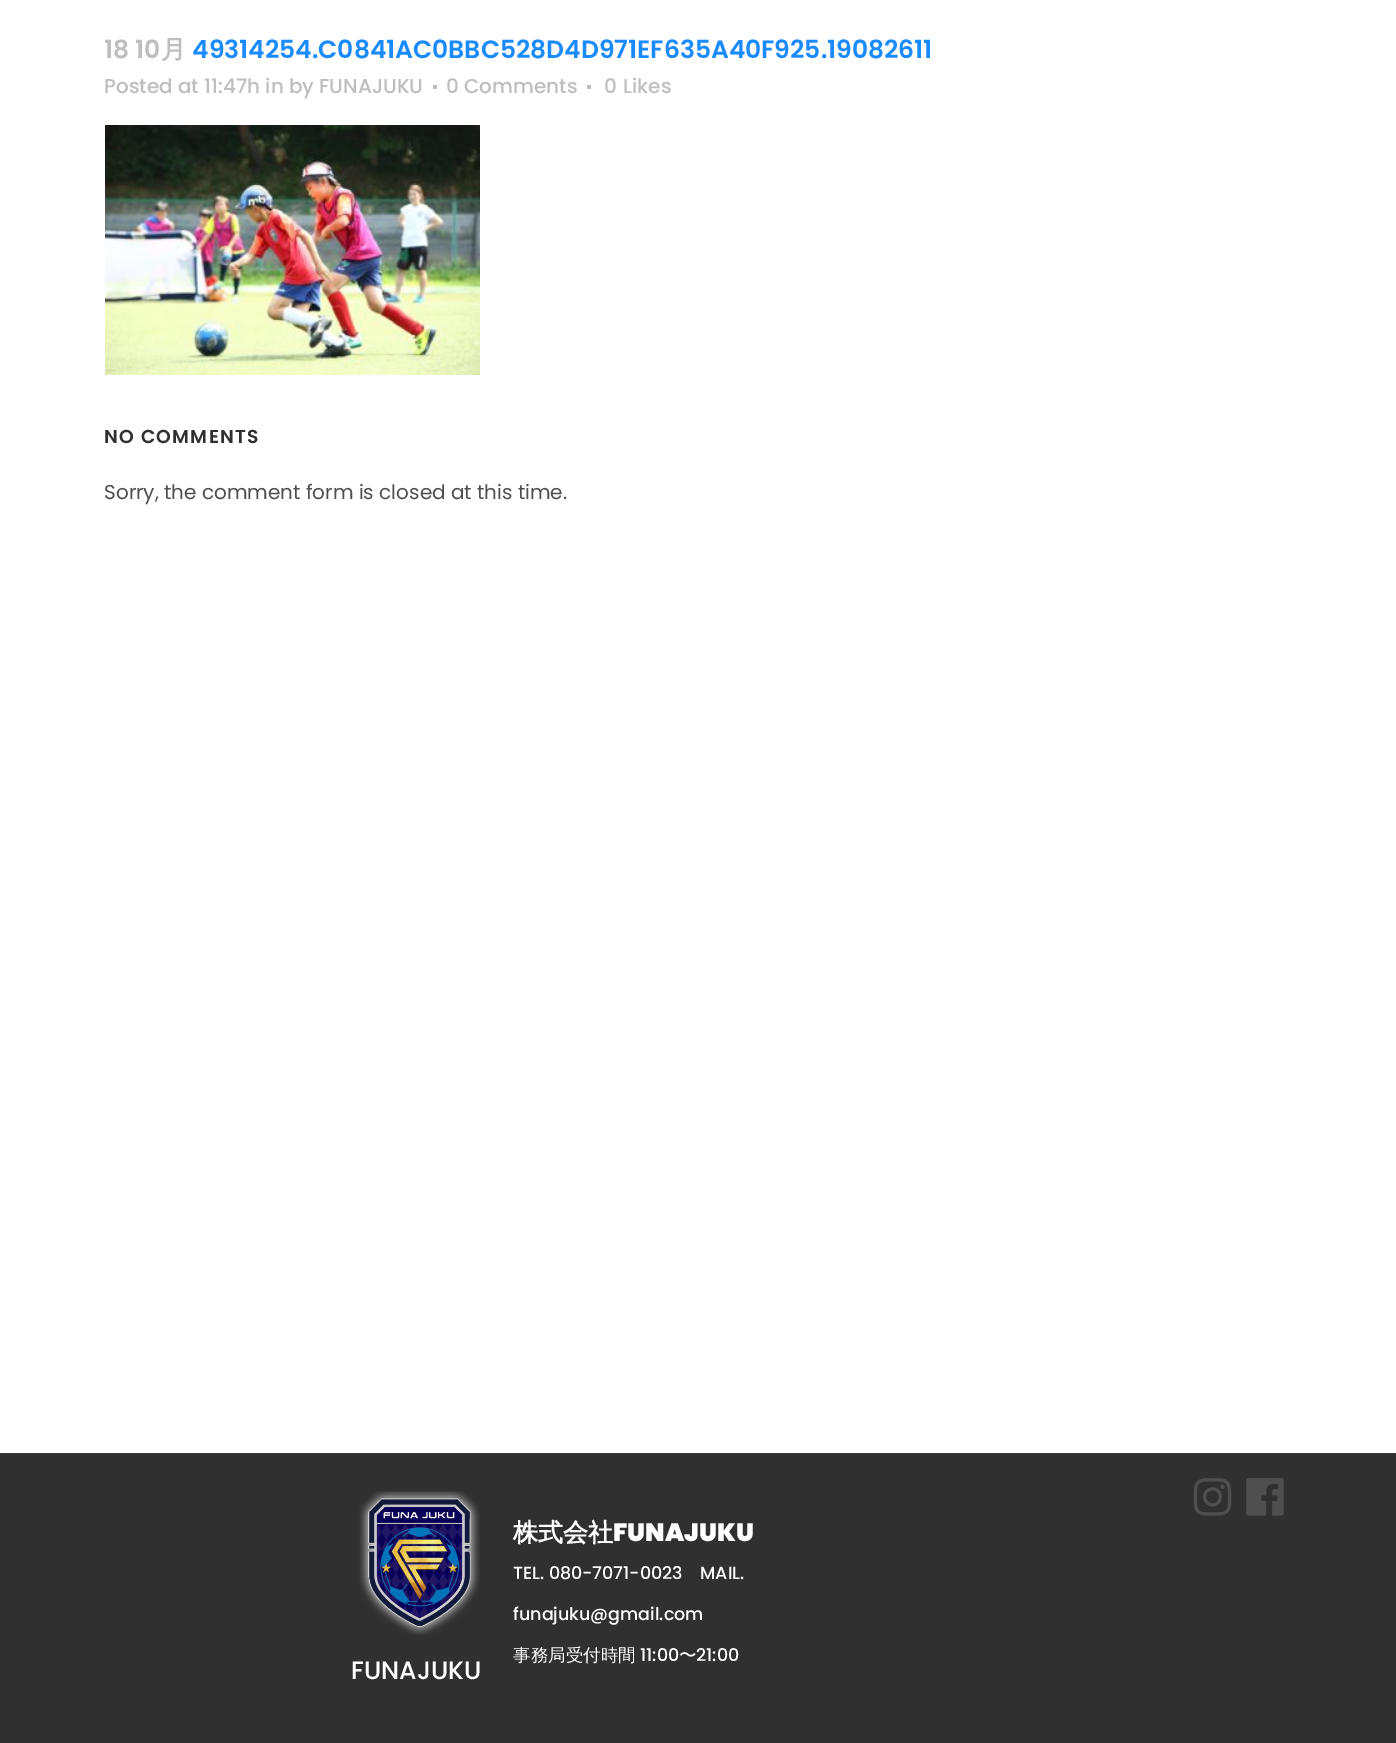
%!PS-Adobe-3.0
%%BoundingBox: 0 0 1396 1743
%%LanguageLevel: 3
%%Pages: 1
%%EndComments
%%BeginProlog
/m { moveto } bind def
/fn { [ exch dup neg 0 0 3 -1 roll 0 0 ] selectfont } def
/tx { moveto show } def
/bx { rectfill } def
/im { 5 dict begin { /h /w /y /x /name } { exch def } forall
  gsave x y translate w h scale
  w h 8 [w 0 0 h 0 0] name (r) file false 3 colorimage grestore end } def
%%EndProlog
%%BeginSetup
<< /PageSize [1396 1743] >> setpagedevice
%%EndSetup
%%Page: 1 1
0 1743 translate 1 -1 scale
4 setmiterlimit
1 setgray
0 0 1396 1743 bx
/Poppins-SemiBold 25 fn
0.745 setgray
(18 10) 104 58 tx
/WenQuanYiZenHei-Bold 25 fn
(月) 161 58 tx
/Poppins-SemiBold 25 fn
0.098 0.545 1 setrgbcolor
(49314254.C0841AC0BBC528D4D971EF635A40F925.19082611) 192 58 tx
/Poppins-Medium 20 fn
0.745 setgray
(Posted at 11:47h in by FUNAJUKU) 104 93 tx
433 85 4 4 bx
(0 Comments) 446 93 tx
587 85 4 4 bx
(0) 604 93 tx
(Likes) 623 93 tx
(image0.raw) 105 125 375 250 im
/Poppins-SemiBold 18.75 fn
0.188 setgray
104 443 m 1.25 0 (NO COMMENTS) ashow
/Poppins-Regular 20 fn
0.31 setgray
(Sorry, the comment form is closed at this time.) 104 499 tx
0.188 setgray
0 1454 1396 289 bx
0.239 0.243 0.235 setrgbcolor
0 1453 1396 1 bx
(image1.raw) 1193 1478 39 38 im
(image2.raw) 1246 1478 38 38 im
/WenQuanYiZenHei-Bold 25 fn
1 setgray
(株式会社) 513 1541 tx
/Poppins-Black 25 fn
(FUNAJUKU) 613 1541 tx
/Poppins-Medium 17.5 fn
(TEL. 080-7071-0023) 513 1579 tx
(MAIL.) 700 1579 tx
(funajuku@gmail.com) 513 1620 tx
/WenQuanYiZenHei-Medium 17.5 fn
(事務局受付時間) 513 1661 tx
/Poppins-Medium 17.5 fn
(11:00) 640 1661 tx
/WenQuanYiZenHei-Medium 17.5 fn
(〜) 679 1661 tx
/Poppins-Medium 17.5 fn
(21:00) 696 1661 tx
(image3.raw) 359 1491 121 144 im
/Poppins-Medium 25 fn
(FUNAJUKU) 351 1679 tx
showpage
%%EOF
